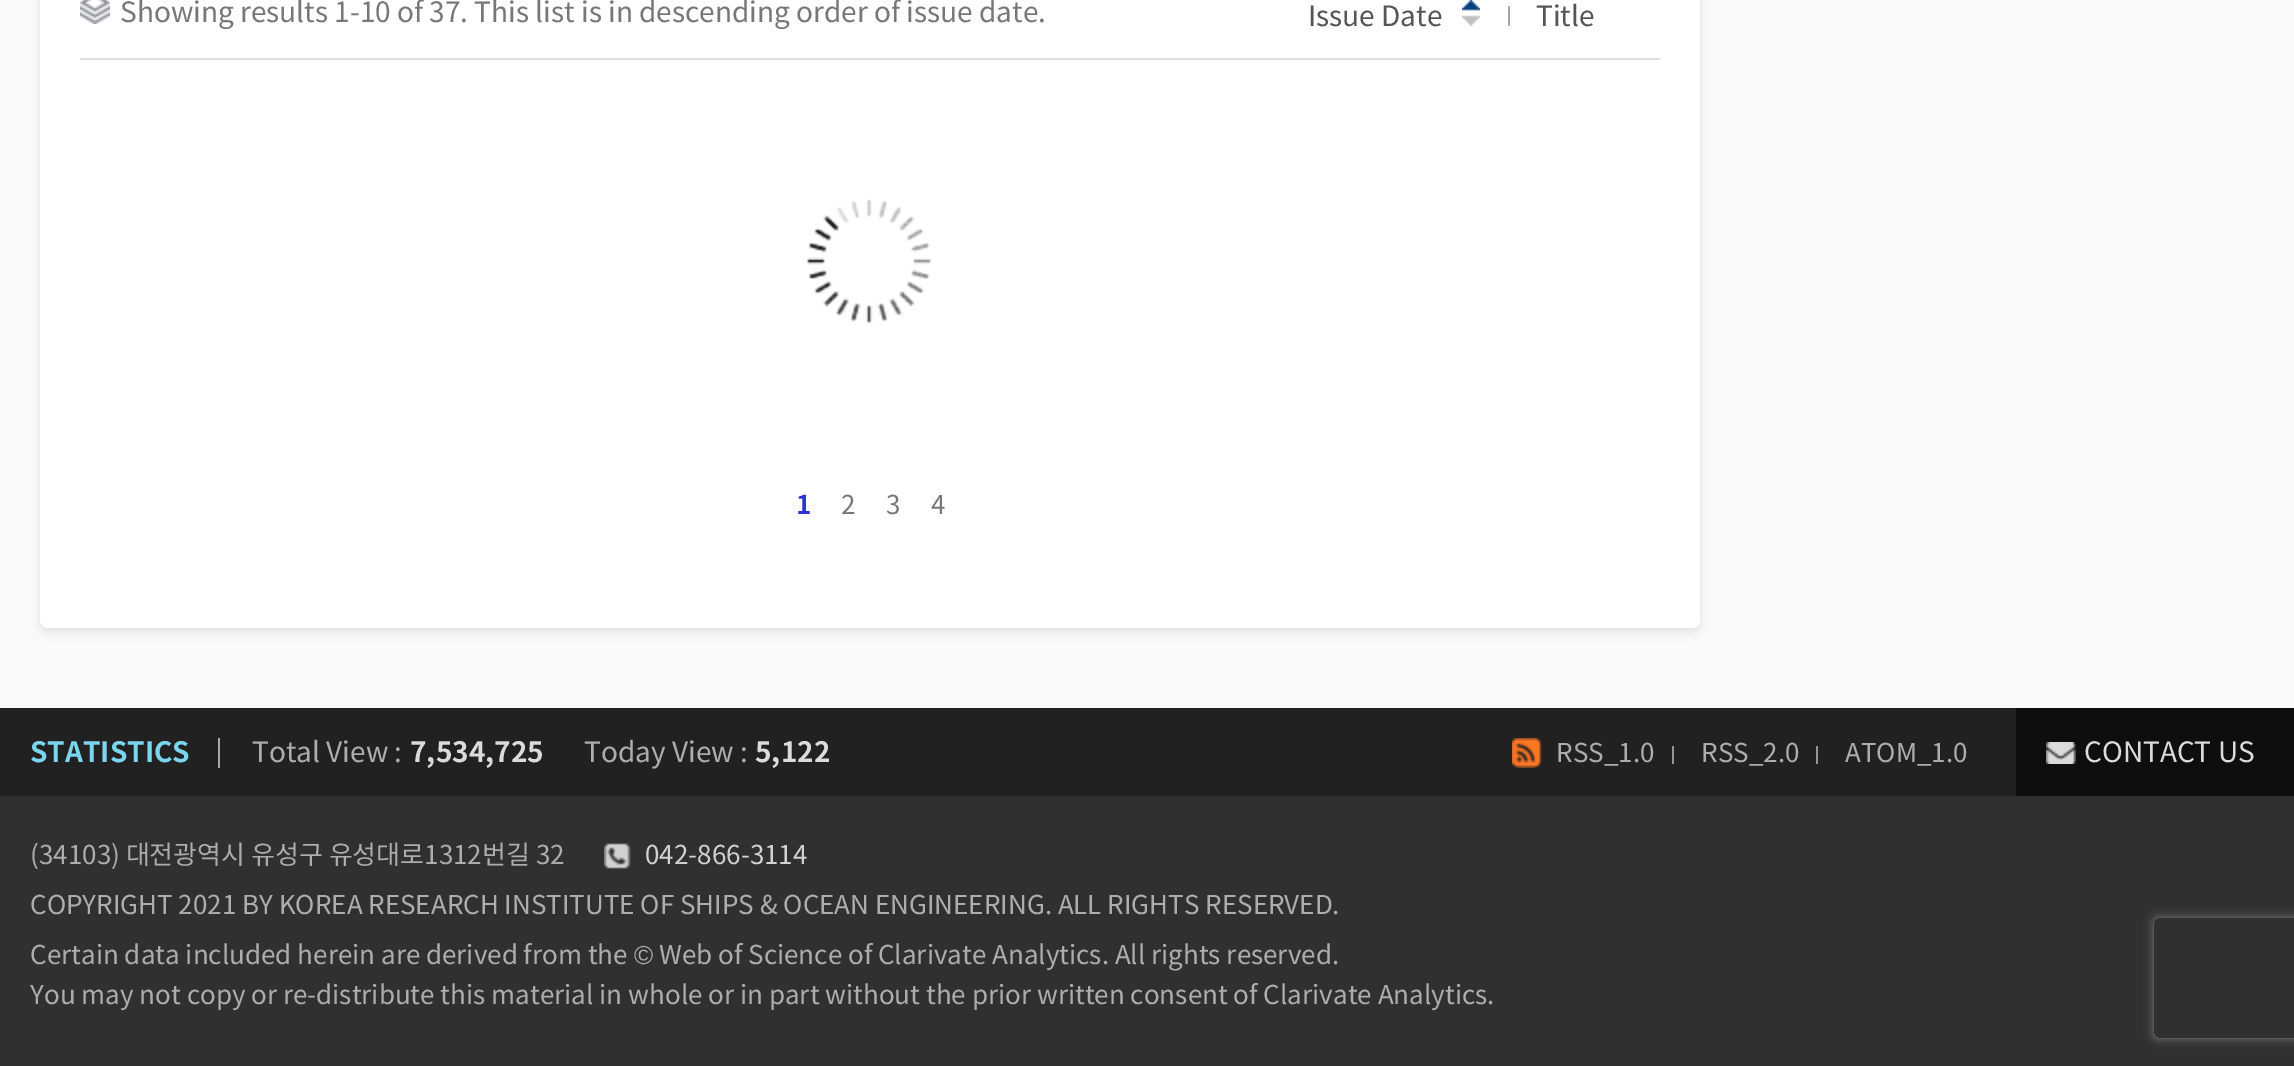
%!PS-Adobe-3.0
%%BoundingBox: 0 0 2294 1066
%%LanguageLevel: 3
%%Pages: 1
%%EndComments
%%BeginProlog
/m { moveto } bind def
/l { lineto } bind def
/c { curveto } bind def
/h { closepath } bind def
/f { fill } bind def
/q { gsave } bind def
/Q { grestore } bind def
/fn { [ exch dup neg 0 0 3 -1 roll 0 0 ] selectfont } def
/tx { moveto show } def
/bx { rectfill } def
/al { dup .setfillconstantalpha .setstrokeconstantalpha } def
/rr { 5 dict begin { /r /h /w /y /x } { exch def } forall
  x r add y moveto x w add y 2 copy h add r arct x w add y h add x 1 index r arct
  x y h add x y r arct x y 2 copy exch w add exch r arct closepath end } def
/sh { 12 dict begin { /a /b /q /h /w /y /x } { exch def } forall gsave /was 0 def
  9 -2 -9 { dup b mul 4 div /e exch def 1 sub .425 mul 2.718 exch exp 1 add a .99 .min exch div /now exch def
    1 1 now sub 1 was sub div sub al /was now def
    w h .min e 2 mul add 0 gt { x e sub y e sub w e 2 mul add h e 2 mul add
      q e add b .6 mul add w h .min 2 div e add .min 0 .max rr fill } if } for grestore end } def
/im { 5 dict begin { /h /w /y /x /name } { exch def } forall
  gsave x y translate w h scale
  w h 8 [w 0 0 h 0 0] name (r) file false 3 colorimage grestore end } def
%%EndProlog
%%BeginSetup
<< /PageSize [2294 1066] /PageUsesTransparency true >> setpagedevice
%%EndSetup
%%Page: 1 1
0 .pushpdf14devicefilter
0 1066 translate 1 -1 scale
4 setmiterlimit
0.98 setgray
0 0 2294 1066 bx
0 setgray
40 -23 1660 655 8 5 0.1 sh
1 setgray
40 -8 1660 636 8 rr f
0.867 setgray
80 58 1580 2 bx
(image0.raw) 80 0 30 24 im
/NotoSansKR-Regular 28 fn
0.467 setgray
(Showing results 1-10 of 37. This list is in descending order of issue date.) 120 22 tx
0.333 setgray
(Issue Date) 1308 26 tx
(image1.raw) 1462 0 18 27 im
0.655 setgray
1508 6 2 20 bx
0.333 setgray
(Title) 1536 26 tx
(image2.raw) 806 199 126 125 im
/NotoSansKR-Bold 26 fn
0.173 0.204 0.827 setrgbcolor
(1) 796 514 tx
/NotoSansKR-Regular 26 fn
0.467 setgray
(2) 841 514 tx
(3) 886 514 tx
(4) 931 514 tx
0.129 setgray
0 708 2016 88 bx
0.663 setgray
218 738 2 30 bx
/NotoSansKR-Bold 28 fn
0.486 0.835 0.937 setrgbcolor
(STATISTICS) 30 762 tx
/NotoSansKR-Regular 28 fn
0.678 setgray
(Total View :) 252 762 tx
/NotoSansKR-Bold 28 fn
0.859 setgray
(7,534,725) 410 762 tx
/NotoSansKR-Regular 28 fn
0.678 setgray
(Today View :) 584 762 tx
/NotoSansKR-Bold 28 fn
0.859 setgray
(5,122) 755 762 tx
(image3.raw) 1512 738 30 30 im
0.584 setgray
1672 746 2 18 bx
/NotoSansKR-Regular 26 fn
0.678 setgray
(RSS_1.0) 1556 762 tx
0.584 setgray
1816 746 2 18 bx
0.678 setgray
(RSS_2.0) 1701 762 tx
(ATOM_1.0) 1845 762 tx
0.055 setgray
2016 708 278 88 bx
(image4.raw) 2046 742 30 22 im
/NotoSansKR-Regular 28 fn
0.859 setgray
(CONTACT US) 2084 762 tx
0.188 setgray
0 796 2294 270 bx
/NotoSansKR-Regular 26 fn
0.678 setgray
(\(34103\) 대전광역시 유성구 유성대로1312번길 32) 30 864 tx
(image5.raw) 604 843 27 26 im
0.824 setgray
(042-866-3114) 645 864 tx
0.678 setgray
(COPYRIGHT 2021 BY KOREA RESEARCH INSTITUTE OF SHIPS & OCEAN ENGINEERING. ALL RIGHTS RESERVED.) 30 914 tx
(Certain data included herein are derived from the) 30 964 tx
/LiberationSans-Regular 26 fn
(©) 634 964 tx
/NotoSansKR-Regular 26 fn
(Web of Science of Clarivate Analytics. All rights reserved.) 659 964 tx
(You may not copy or re-distribute this material in whole or in part without the prior written consent of Clarivate Analytics.) 30 1004 tx
q
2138 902 m 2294 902 l 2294 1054 l 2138 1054 l h 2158 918 m 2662 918 l 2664 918 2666 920 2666 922 c 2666 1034 l 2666 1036 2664 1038 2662 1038 c 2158 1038 l 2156 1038 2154 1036 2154 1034 c 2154 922 l 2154 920 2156 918 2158 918 c h eoclip newpath
0.502 setgray
2154 918 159 120 4 5 1 sh
Q
.poppdf14devicefilter showpage
%%EOF
